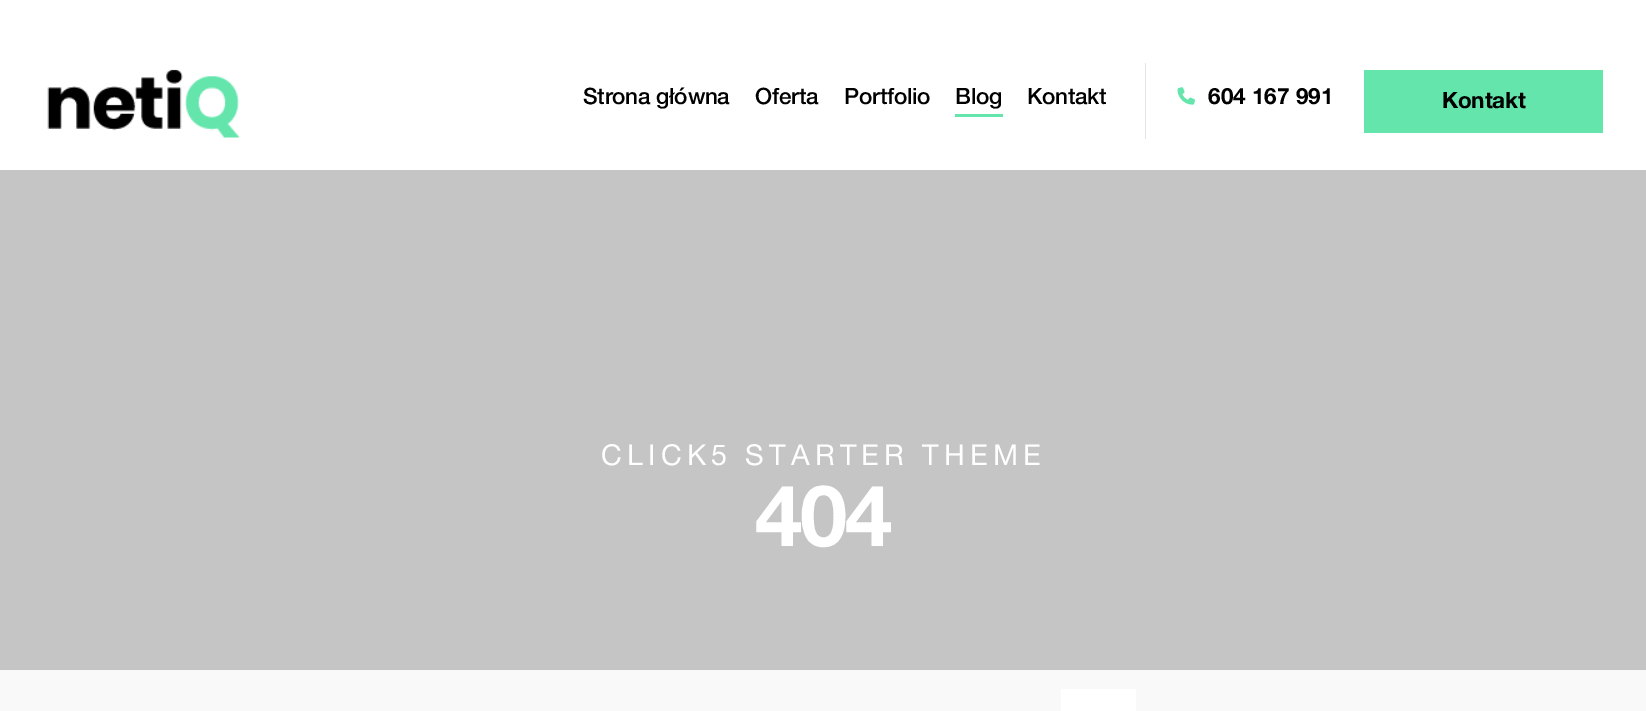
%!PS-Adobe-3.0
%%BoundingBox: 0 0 1646 711
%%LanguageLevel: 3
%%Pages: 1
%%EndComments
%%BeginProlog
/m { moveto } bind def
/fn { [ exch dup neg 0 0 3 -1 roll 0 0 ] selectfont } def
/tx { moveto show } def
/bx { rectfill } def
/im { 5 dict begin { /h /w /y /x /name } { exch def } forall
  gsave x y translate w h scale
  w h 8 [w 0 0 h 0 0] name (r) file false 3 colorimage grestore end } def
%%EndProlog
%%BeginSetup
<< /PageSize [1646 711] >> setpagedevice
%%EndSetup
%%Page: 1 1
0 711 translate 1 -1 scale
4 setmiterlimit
1 setgray
0 0 1646 711 bx
(image0.raw) 47 69 193 69 im
/HelveticaNeue-Medium 22.5 fn
0 setgray
583 104 m -0.25 0 (Strona główna) ashow
755 104 m -0.25 0 (Oferta) ashow
844 104 m -0.25 0 (Portfolio) ashow
0.392 0.898 0.671 setrgbcolor
955 114 48 3 bx
0 setgray
955 104 m -0.25 0 (Blog) ashow
1027 104 m -0.25 0 (Kontakt) ashow
0.894 setgray
1145 63 1 76 bx
(image1.raw) 1177 87 18 18 im
/HelveticaNeue-Bold 22.5 fn
0 setgray
(604 167 991) 1208 104 tx
0.392 0.898 0.671 setrgbcolor
1364 70 239 63 bx
0 setgray
1442 108 m -0.25 0 (Kontakt) ashow
0.773 setgray
0 170 1646 500 bx
/HelveticaNeue-Regular 28.75 fn
1 setgray
601 465 m 5.2 0 (CLICK5 STARTER THEME) ashow
/HelveticaNeue-Bold 85 fn
755 546 m -2 0 (404) ashow
0.976 setgray
0 670 1646 41 bx
1 setgray
1061 689 75 22 bx
showpage
%%EOF
